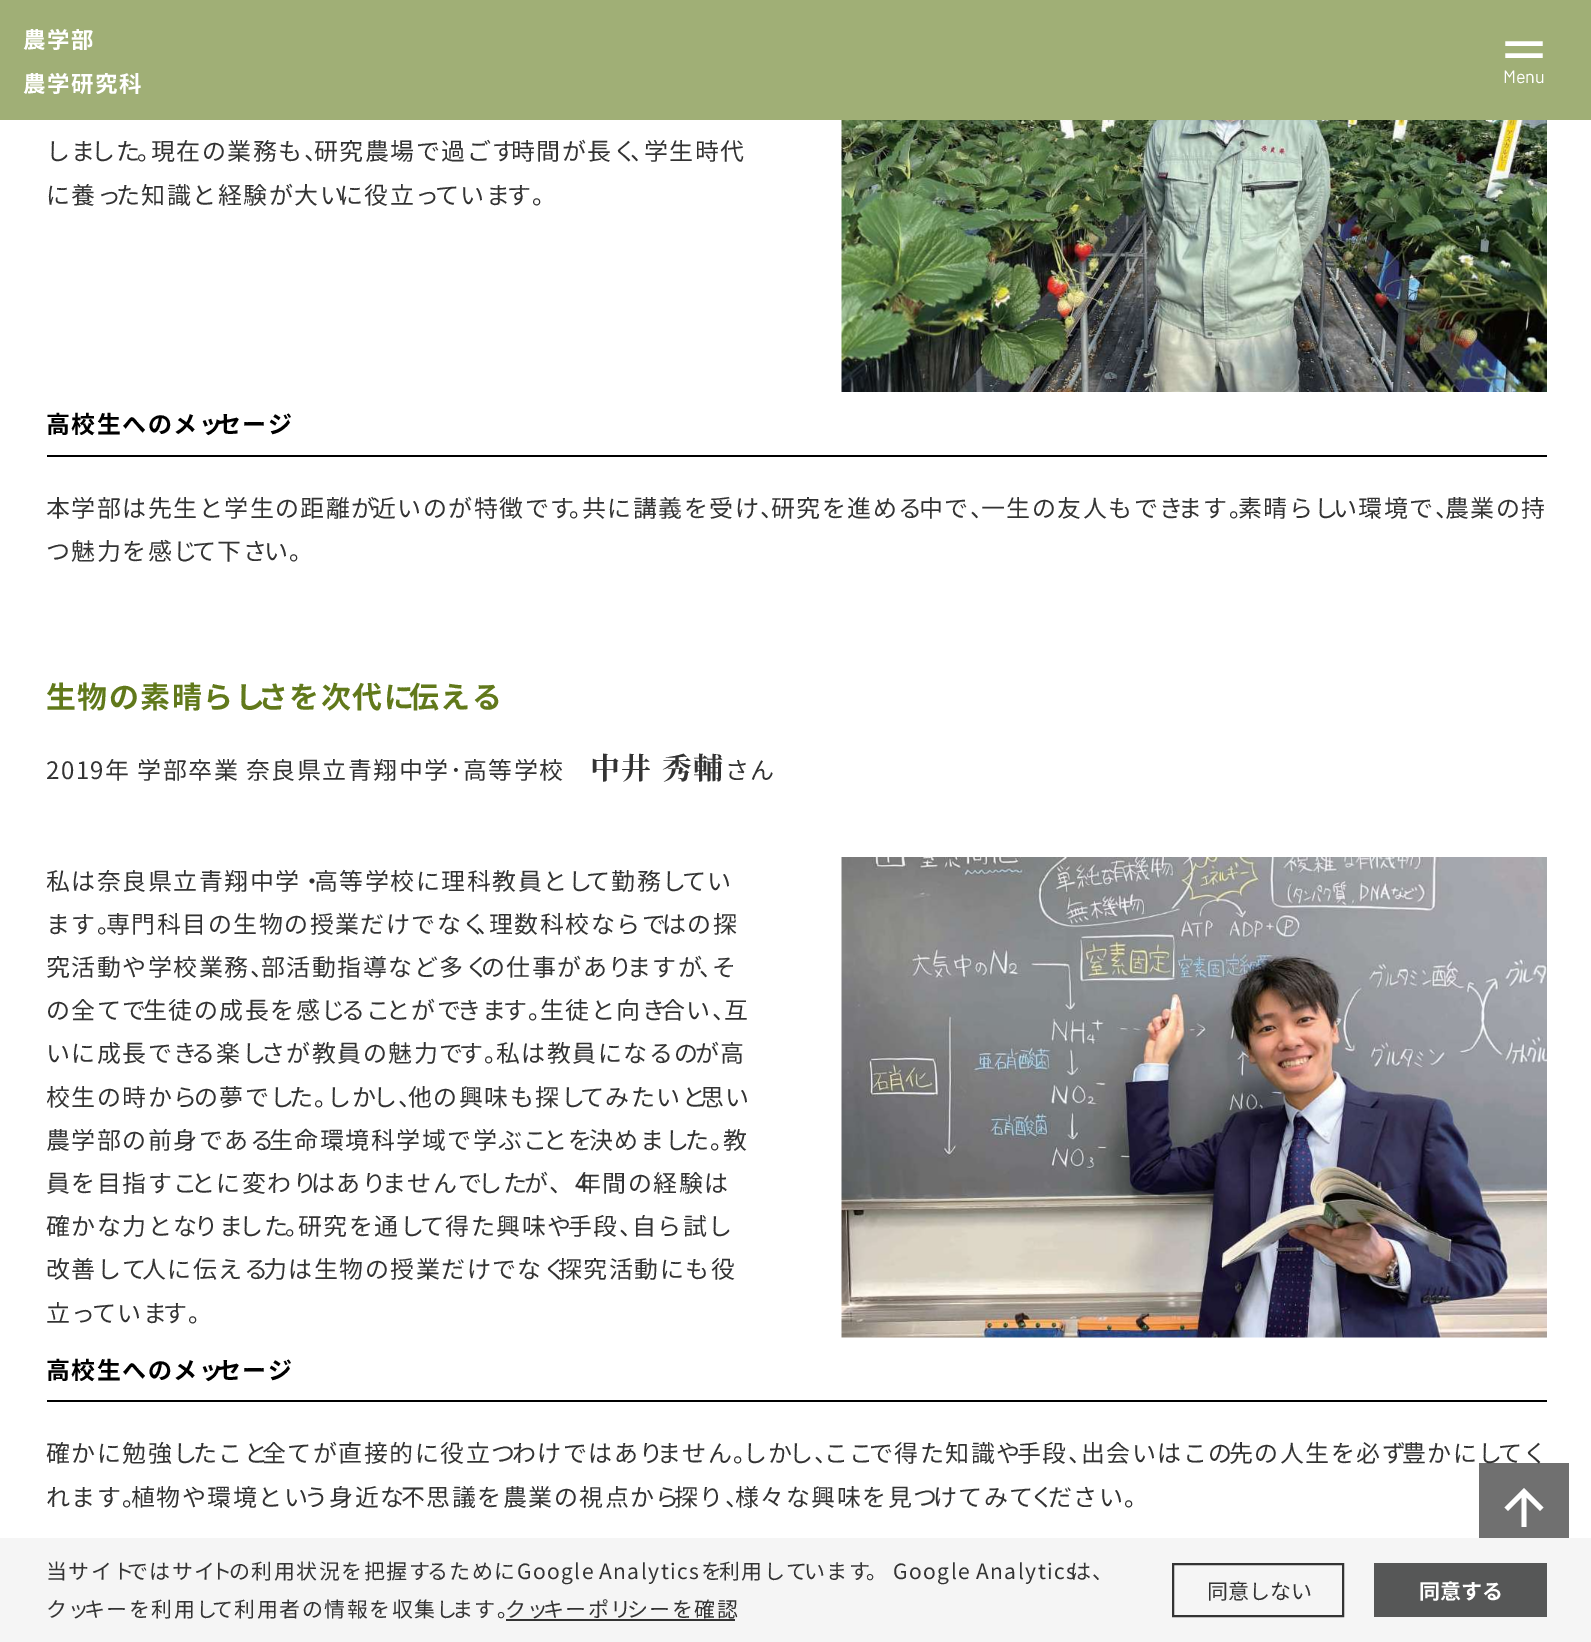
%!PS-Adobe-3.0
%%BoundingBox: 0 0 1591 1642
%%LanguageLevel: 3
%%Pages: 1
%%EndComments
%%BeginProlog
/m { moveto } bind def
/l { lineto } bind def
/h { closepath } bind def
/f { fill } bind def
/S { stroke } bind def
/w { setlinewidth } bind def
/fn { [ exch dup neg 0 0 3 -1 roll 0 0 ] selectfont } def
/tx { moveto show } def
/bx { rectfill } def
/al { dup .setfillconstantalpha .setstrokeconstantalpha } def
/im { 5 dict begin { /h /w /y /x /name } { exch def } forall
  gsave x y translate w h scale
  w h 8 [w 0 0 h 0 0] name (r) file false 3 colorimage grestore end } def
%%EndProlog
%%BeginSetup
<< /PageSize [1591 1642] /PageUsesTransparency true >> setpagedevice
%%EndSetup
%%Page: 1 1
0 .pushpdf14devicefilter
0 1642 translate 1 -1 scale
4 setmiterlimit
1 setgray
0 0 1591 1642 bx
0.627 0.686 0.463 setrgbcolor
0 0 1591 120 bx
/NotoSansJP-Bold 22.5 fn
1 setgray
23 48 m 1.45 0 (農学部) ashow
23 92 m 1.45 0 (農学研究科) ashow
4.5 w
2 setlinecap
1507.5 43.5 m 1540.5 43.5 l 1507.5 55.5 m 1540.5 55.5 l S
/Barlow-Regular 18 fn
(Menu) 1503 83 tx
/NotoSansJP-Regular 24 fn
0.2 setgray
46 160 m 1.45 0 (しま) ashow
91 160 m 1.45 0 (した) ashow
137 160 m 1.45 0 (。) ashow
151 160 m 1.45 0 (現在の業務も、) ashow
314 160 m 1.45 0 (研究農場で過ごす) ashow
511 160 m 1.45 0 (時間が長く) ashow
630 160 m 1.45 0 (、) ashow
644 160 m 1.45 0 (学生時代) ashow
46 204 m 1.45 0 (に養っ) ashow
116 204 m 1.45 0 (た知識と経験が大い) ashow
339 204 m 1.45 0 (に役立っ) ashow
435 204 m 1.45 0 (ていま) ashow
507 204 m 1.45 0 (す。) ashow
(image0.raw) 841 120 706 272 im
0 setgray
47 455 1500 2 bx
/NotoSansJP-Bold 24 fn
46 433 m 1.45 0 (高校生へのメッ) ashow
217 433 m 1.45 0 (セージ) ashow
/NotoSansJP-Regular 24 fn
0.2 setgray
46 517 m 1.45 0 (本学部は先生と学生の距離が) ashow
372 517 m 1.45 0 (近いのが特徴です) ashow
569 517 m 1.45 0 (。) ashow
582 517 m 1.45 0 (共に講義を受け、) ashow
771 517 m 1.45 0 (研究を進める) ashow
919 517 m 1.45 0 (中で、) ashow
981 517 m 1.45 0 (一生の友人もでき) ashow
1178 517 m 1.45 0 (ます。) ashow
1238 517 m 1.45 0 (素晴らし) ashow
1333 517 m 1.45 0 (い環境で、) ashow
1445 517 m 1.45 0 (農業の持) ashow
46 560 m 1.45 0 (つ魅力を感じ) ashow
192 560 m 1.45 0 (て下さ) ashow
264 560 m 1.45 0 (い。) ashow
/NotoSansJP-Bold 30 fn
0.38 0.475 0.106 setrgbcolor
46 708 m 1.45 0 (生物の素晴らし) ashow
258 708 m 1.45 0 (さを次代に) ashow
409 708 m 1.45 0 (伝える) ashow
/NotoSansJP-Regular 24 fn
0.2 setgray
46 779 m 1.45 0 (2019年 学部卒業 奈良県立青翔中学･高等学校) ashow
/NotoSerifJP-Bold 30 fn
590 779 m 1.45 0 (中井 秀輔) ashow
/NotoSansJP-Regular 24 fn
725 779 m 1.45 0 (さん) ashow
46 890 m 1.45 0 (私は奈良県立青翔中学・) ashow
314 890 m 1.45 0 (高等学校に理科教員とし) ashow
586 890 m 1.45 0 (て勤務し) ashow
682 890 m 1.45 0 (てい) ashow
46 933 m 1.45 0 (ます。) ashow
106 933 m 1.45 0 (専門科目の生物の授業だけでなく) ashow
476 933 m 1.45 0 (、) ashow
489 933 m 1.45 0 (理数科校ならで) ashow
662 933 m 1.45 0 (はの探) ashow
46 976 m 1.45 0 (究活動や学校業務、) ashow
261 976 m 1.45 0 (部活動指導など多く) ashow
481 976 m 1.45 0 (の仕事があり) ashow
627 976 m 1.45 0 (ますが) ashow
699 976 m 1.45 0 (、) ashow
712 976 m 1.45 0 (そ) ashow
46 1019 m 1.45 0 (の全てで) ashow
143 1019 m 1.45 0 (生徒の成長を感じ) ashow
341 1019 m 1.45 0 (るこ) ashow
386 1019 m 1.45 0 (とがで) ashow
457 1019 m 1.45 0 (きま) ashow
503 1019 m 1.45 0 (す。) ashow
540 1019 m 1.45 0 (生徒と向き) ashow
661 1019 m 1.45 0 (合い、) ashow
724 1019 m 1.45 0 (互) ashow
46 1062 m 1.45 0 (いに成長でき) ashow
191 1062 m 1.45 0 (る楽し) ashow
261 1062 m 1.45 0 (さが教員の魅力で) ashow
459 1062 m 1.45 0 (す。) ashow
496 1062 m 1.45 0 (私は教員になるの) ashow
695 1062 m 1.45 0 (が高) ashow
46 1106 m 1.45 0 (校生の時から) ashow
194 1106 m 1.45 0 (の夢でし) ashow
289 1106 m 1.45 0 (た。) ashow
327 1106 m 1.45 0 (しか) ashow
373 1106 m 1.45 0 (し、) ashow
408 1106 m 1.45 0 (他の興味も探し) ashow
580 1106 m 1.45 0 (てみたいと) ashow
700 1106 m 1.45 0 (思い) ashow
46 1149 m 1.45 0 (農学部の前身である) ashow
269 1149 m 1.45 0 (生命環境科学域で学ぶこ) ashow
543 1149 m 1.45 0 (とを) ashow
589 1149 m 1.45 0 (決めまし) ashow
685 1149 m 1.45 0 (た。) ashow
723 1149 m 1.45 0 (教) ashow
46 1192 m 1.45 0 (員を目指すこ) ashow
191 1192 m 1.45 0 (とに変わり) ashow
311 1192 m 1.45 0 (はあり) ashow
382 1192 m 1.45 0 (ませんで) ashow
478 1192 m 1.45 0 (した) ashow
524 1192 m 1.45 0 (が、4) ashow
577 1192 m 1.45 0 (年間の経験は) ashow
46 1235 m 1.45 0 (確かな力とな) ashow
194 1235 m 1.45 0 (りま) ashow
239 1235 m 1.45 0 (した) ashow
285 1235 m 1.45 0 (。) ashow
298 1235 m 1.45 0 (研究を通し) ashow
420 1235 m 1.45 0 (て得た興味や) ashow
568 1235 m 1.45 0 (手段、) ashow
632 1235 m 1.45 0 (自ら試し) ashow
46 1278 m 1.45 0 (改善して) ashow
142 1278 m 1.45 0 (人に伝える) ashow
263 1278 m 1.45 0 (力は生物の授業だけでなく) ashow
558 1278 m 1.45 0 (探究活動にも役) ashow
46 1322 m 1.45 0 (立っ) ashow
92 1322 m 1.45 0 (ていま) ashow
163 1322 m 1.45 0 (す。) ashow
(image1.raw) 841 857 706 481 im
0 setgray
47 1400 1500 2 bx
/NotoSansJP-Bold 24 fn
46 1379 m 1.45 0 (高校生へのメッ) ashow
217 1379 m 1.45 0 (セージ) ashow
/NotoSansJP-Regular 24 fn
0.2 setgray
46 1462 m 1.45 0 (確かに勉強し) ashow
193 1462 m 1.45 0 (たこと) ashow
262 1462 m 1.45 0 (全てが直接的に役立つ) ashow
512 1462 m 1.45 0 (わけではあり) ashow
657 1462 m 1.45 0 (ません。) ashow
743 1462 m 1.45 0 (しか) ashow
789 1462 m 1.45 0 (し、) ashow
824 1462 m 1.45 0 (ここ) ashow
869 1462 m 1.45 0 (で得た知識や) ashow
1017 1462 m 1.45 0 (手段、) ashow
1081 1462 m 1.45 0 (出会いはこの) ashow
1229 1462 m 1.45 0 (先の人生を必ず) ashow
1402 1462 m 1.45 0 (豊かにし) ashow
1498 1462 m 1.45 0 (てく) ashow
46 1506 m 1.45 0 (れます。) ashow
131 1506 m 1.45 0 (植物や環境とい) ashow
304 1506 m 1.45 0 (う身近な) ashow
401 1506 m 1.45 0 (不思議を農業の視点から) ashow
674 1506 m 1.45 0 (探り、) ashow
735 1506 m 1.45 0 (様々な興味を見つ) ashow
933 1506 m 1.45 0 (けてみて) ashow
1030 1506 m 1.45 0 (く) ashow
1048 1506 m 1.45 0 (ださい。) ashow
0.7 al
1479 1463 90 75 bx
1 al
1 setgray
1504.5 1507.5 m 1508 1511 l 1521.5 1497.5 l 1521.5 1527 l 1526.5 1527 l 1526.5 1497.5 l 1540 1511 l 1543.5 1507.5 l 1524 1488 l h f
0.961 setgray
0 1538 1591 104 bx
/NotoSansJP-Regular 21 fn
0.2 setgray
46 1579 m 1.45 0 (当サイト) ashow
127 1579 m 1.45 0 (ではサイ) ashow
211 1579 m 1.45 0 (ト) ashow
229 1579 m 1.45 0 (の利用状況を把握す) ashow
427 1579 m 1.45 0 (るためにGoogle) ashow
599 1579 m 1.45 0 (Analyticsを) ashow
719 1579 m 1.45 0 (利用して) ashow
804 1579 m 1.45 0 (います) ashow
866 1579 m 1.45 0 (。) ashow
893 1579 m 1.45 0 (Google) ashow
976 1579 m 1.45 0 (Analytics) ashow
1070 1579 m 1.45 0 (は、) ashow
46 1617 m 1.45 0 (クッ) ashow
84 1617 m 1.45 0 (キーを利用し) ashow
212 1617 m 1.45 0 (て利用者の情報を収集し) ashow
452 1617 m 1.45 0 (ます。) ashow
505 1617 m 1.45 0 (クッ) ashow
543 1617 m 1.45 0 (キーポリ) ashow
627 1617 m 1.45 0 (シーを確認) ashow
506 1619 229 2 bx
2 w
0 setlinecap
1173 1564 170 52 rectstroke
(同意しない) 1207 1599 tx
0.337 0.341 0.341 setrgbcolor
1374 1563 173 54 bx
/NotoSansJP-Bold 21 fn
1 setgray
(同意する) 1419 1599 tx
.poppdf14devicefilter showpage
%%EOF
